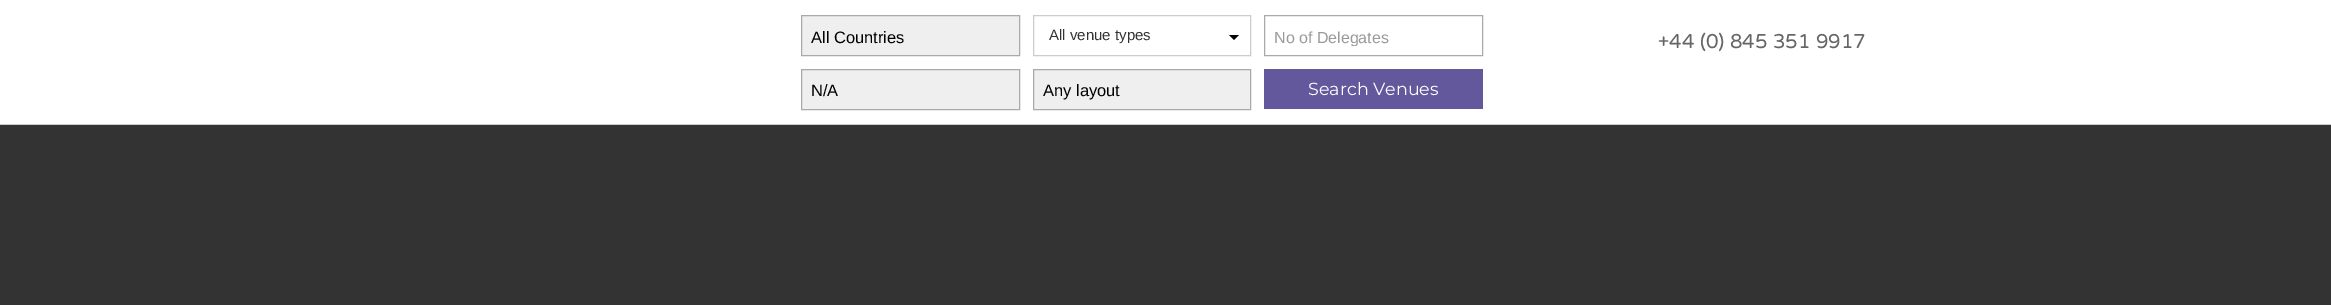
%!PS-Adobe-3.0
%%BoundingBox: 0 0 2331 305
%%LanguageLevel: 3
%%Pages: 1
%%EndComments
%%BeginProlog
/m { moveto } bind def
/l { lineto } bind def
/h { closepath } bind def
/f { fill } bind def
/S { stroke } bind def
/q { gsave } bind def
/Q { grestore } bind def
/fn { [ exch dup neg 0 0 3 -1 roll 0 0 ] selectfont } def
/tx { moveto show } def
/bx { rectfill } def
%%EndProlog
%%BeginSetup
<< /PageSize [2331 305] >> setpagedevice
%%EndSetup
%%Page: 1 1
0 305 translate 1 -1 scale
4 setmiterlimit
0.2 setgray
0 0 2331 305 bx
1 setgray
0 0 2331 124 bx
0.8 setgray
0 124 2331 1 bx
0.937 setgray
801.5 15.5 m 1019.5 15.5 l 1019.5 55.5 l 801.5 55.5 l h q f Q
0.667 setgray
S
/LiberationSans-Regular 16.5 fn
0 setgray
(All Countries) 811 43 tx
0.937 setgray
801.5 69.5 m 1019.5 69.5 l 1019.5 109.5 l 801.5 109.5 l h q f Q
0.667 setgray
S
0 setgray
(N/A) 811 96 tx
0.8 setgray
1033.5 15.5 217 40 rectstroke
/LiberationSans-Regular 15 fn
0.2 setgray
(All venue types) 1049 40 tx
0 setgray
1229 35 m 1239 35 l 1234 40 l h f
0.937 setgray
1033.5 69.5 m 1250.5 69.5 l 1250.5 109.5 l 1033.5 109.5 l h q f Q
0.667 setgray
S
/LiberationSans-Regular 16.5 fn
0 setgray
(Any layout) 1043 96 tx
0.667 setgray
1264.5 15.5 218 40 rectstroke
q
1274 28 207 18 rectclip
/LiberationSans-Regular 16 fn
0.604 setgray
(No of Delegates) 1274 43 tx
Q
0.388 0.345 0.612 setrgbcolor
1264 69 219 40 bx
/Montserrat-Regular 17.5 fn
1 setgray
(Search Venues) 1308 95 tx
/VarelaRound-Regular 20 fn
0.4 setgray
(+44 \(0\) 845 351 9917) 1658 48 tx
showpage
%%EOF
